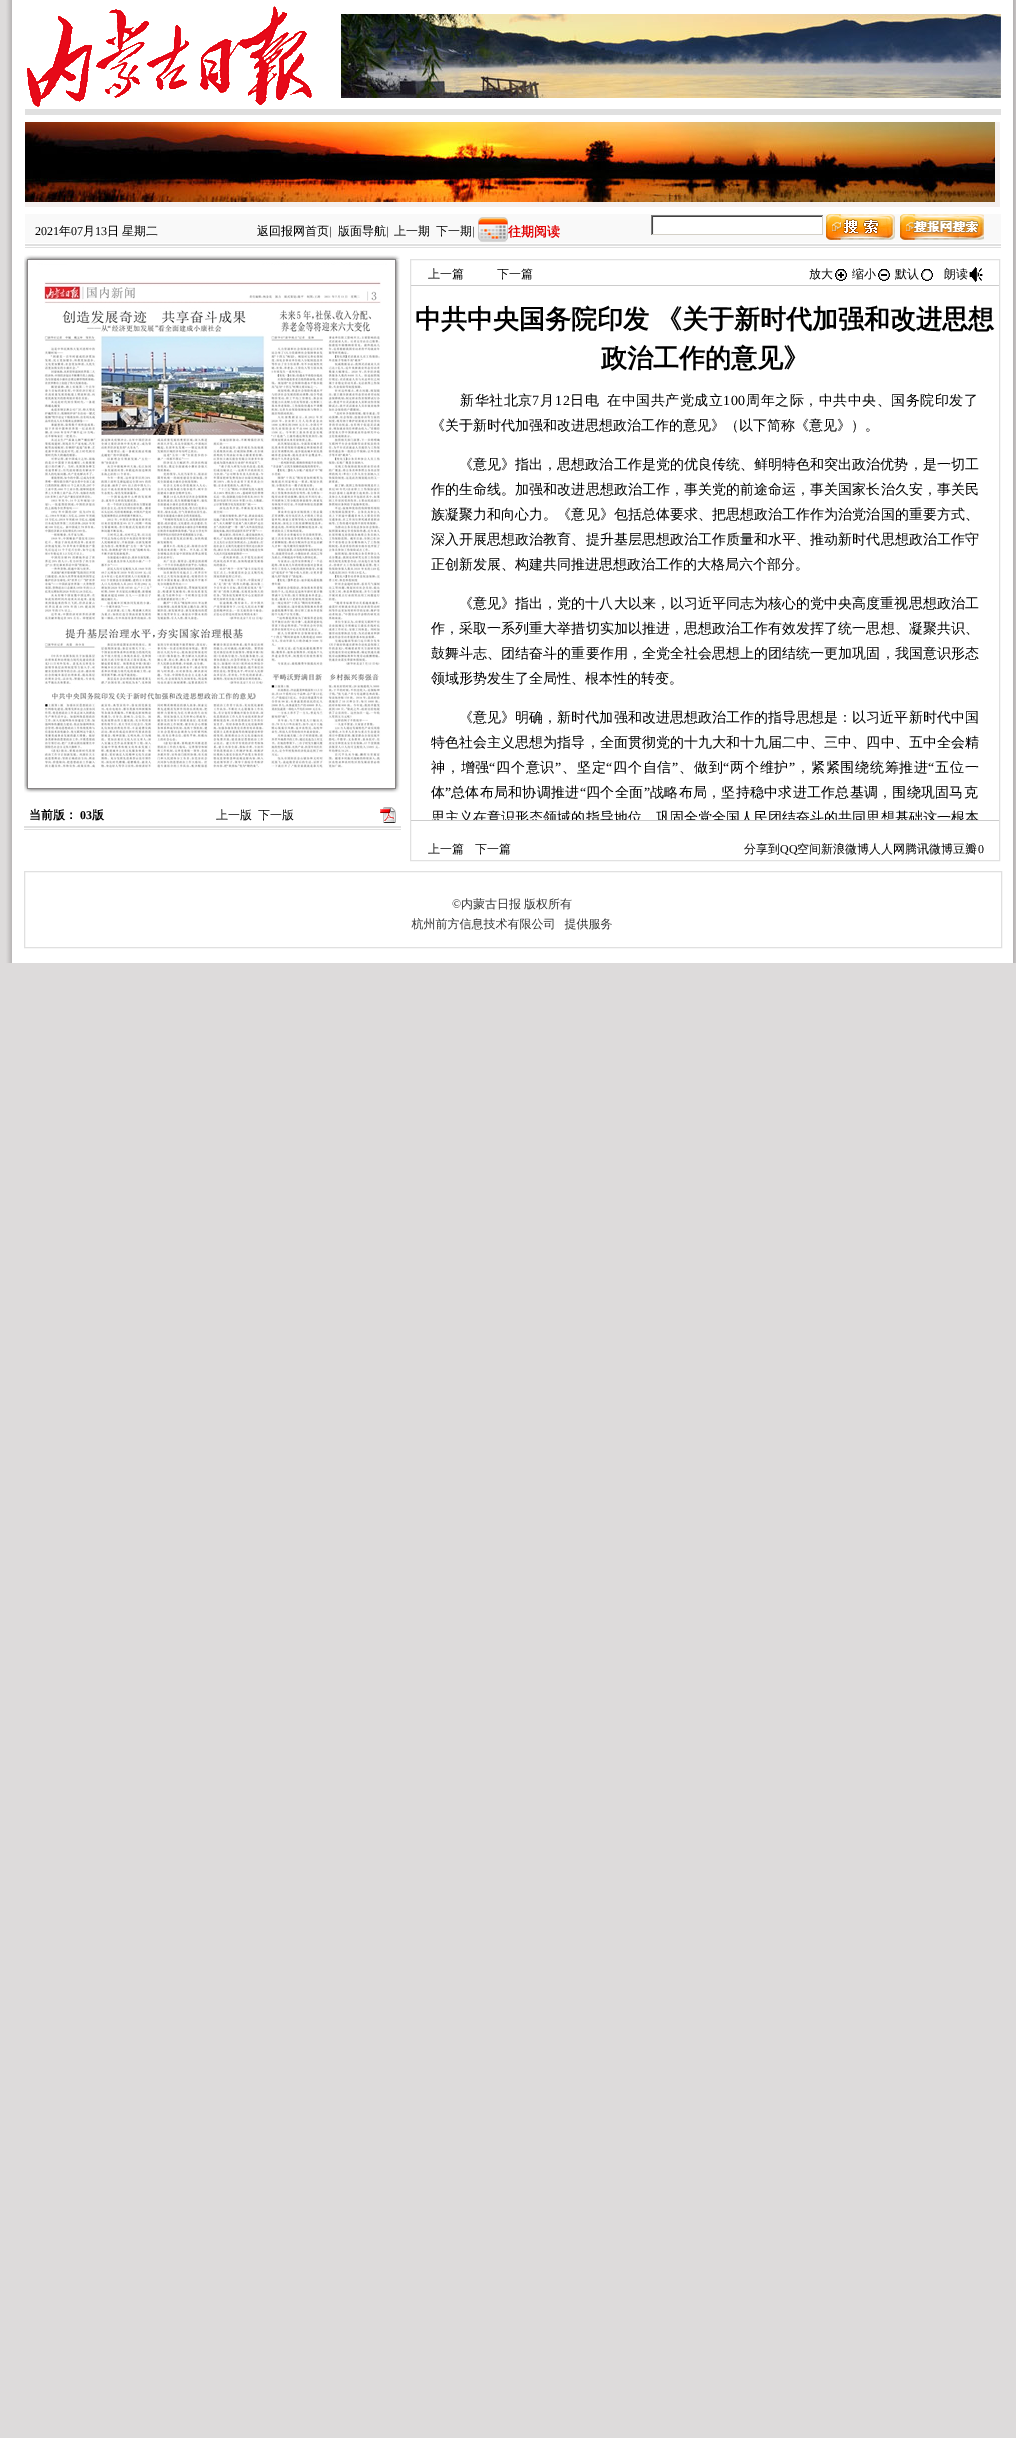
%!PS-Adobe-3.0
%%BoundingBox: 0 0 1016 2438
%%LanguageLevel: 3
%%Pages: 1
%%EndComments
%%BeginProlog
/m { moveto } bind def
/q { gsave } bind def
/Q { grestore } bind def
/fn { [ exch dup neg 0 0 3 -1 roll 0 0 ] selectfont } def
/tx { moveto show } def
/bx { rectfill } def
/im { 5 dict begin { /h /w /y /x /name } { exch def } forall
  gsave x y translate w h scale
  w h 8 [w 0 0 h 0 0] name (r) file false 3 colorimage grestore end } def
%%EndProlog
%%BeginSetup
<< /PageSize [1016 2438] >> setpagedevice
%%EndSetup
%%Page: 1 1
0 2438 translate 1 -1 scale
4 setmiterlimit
0.867 0.859 0.859 setrgbcolor
0 0 1016 2438 bx
(image0.raw) 0 0 1016 963 im
(image1.raw) 27 6 285 101 im
(image2.raw) 341 14 660 84 im
0.878 setgray
25 109 976 6 bx
(image3.raw) 25 122 975 85 im
(image4.raw) 25 214 976 34 im
/LiberationSerif-Regular 12 fn
0 setgray
(2021) 35 235 tx
/WenQuanYiZenHei-Medium 12 fn
(年) 59 235 tx
/LiberationSerif-Regular 12 fn
(07) 71 235 tx
/WenQuanYiZenHei-Medium 12 fn
(月) 83 235 tx
/LiberationSerif-Regular 12 fn
(13) 95 235 tx
/WenQuanYiZenHei-Medium 12 fn
(日) 107 235 tx
(星期二) 122 235 tx
(返回报网首页) 257 235 tx
/LiberationSerif-Regular 12 fn
(|) 329 235 tx
/WenQuanYiZenHei-Medium 12 fn
(版面导航) 338 235 tx
/LiberationSerif-Regular 12 fn
(|) 386 235 tx
/WenQuanYiZenHei-Medium 12 fn
(上一期) 394 235 tx
(下一期) 436 235 tx
/LiberationSerif-Regular 12 fn
(|) 472 235 tx
(image5.raw) 478 217 30 25 im
/WenQuanYiZenHei-Bold 13 fn
0.886 0.008 0.012 setrgbcolor
(往期阅读) 508 236 tx
(image6.raw) 651 215 172 20 im
(image7.raw) 826 214 69 26 im
(image8.raw) 900 214 84 26 im
(image9.raw) 24 255 376 4 im
(image10.raw) 24 259 376 6 im
(image11.raw) 24 265 376 521 im
(image12.raw) 44 281 337 487 im
(image13.raw) 24 786 376 7 im
(image14.raw) 24 826 377 4 im
/WenQuanYiZenHei-Bold 12 fn
0 setgray
(当前版：) 29 819 tx
/LiberationSerif-Bold 12 fn
(03) 80 819 tx
/WenQuanYiZenHei-Bold 12 fn
(版) 92 819 tx
/WenQuanYiZenHei-Medium 12 fn
(上一版) 216 819 tx
(下一版) 258 819 tx
(image15.raw) 380 807 16 16 im
0.882 setgray
410.5 259.5 589 601 rectstroke
0.8 setgray
411 285 588 1 bx
0 setgray
(上一篇) 428 278 tx
(下一篇) 497 278 tx
(放大) 809 278 tx
(image16.raw) 835 269 12 12 im
(缩小) 852 278 tx
(image17.raw) 878 269 12 12 im
(默认) 895 278 tx
(image18.raw) 921 269 12 12 im
(朗读) 944 278 tx
(image19.raw) 969 267 14 15 im
/WenQuanYiZenHei-Bold 26 fn
415 328 m -1 0 32 (中共中央国务院印发 《关于新时代加强和改进思想) widthshow
(政治工作的意见》) 601 367 tx
/WenQuanYiZenHei-Medium 14 fn
460 405 m 0.5 0 (新华社北京) ashow
/LiberationSerif-Regular 14 fn
532 405 m 0.5 0 (7) ashow
/WenQuanYiZenHei-Medium 14 fn
540 405 m 0.5 0 (月) ashow
/LiberationSerif-Regular 14 fn
555 405 m 0.5 0 (12) ashow
/WenQuanYiZenHei-Medium 14 fn
570 405 m 0.5 0 (日电) ashow
607 405 m 0.5 0 (在中国共产党成立) ashow
/LiberationSerif-Regular 14 fn
723 405 m 0.5 0 (100) ashow
/WenQuanYiZenHei-Medium 14 fn
746 405 m 0.5 0 (周年之际，中共中央、国务院印发了) ashow
(《关于新时代加强和改进思想政治工作的意见》（以下简称《意见》）。) 431 430 tx
459 469 m 0.05 0 (《意见》指出，思想政治工作是党的优良传统、鲜明特色和突出政治优势，是一切工) ashow
431 494 m 0.05 0 (作的生命线。加强和改进思想政治工作，事关党的前途命运，事关国家长治久安，事关民) ashow
431 519 m 0.05 0 (族凝聚力和向心力。《意见》包括总体要求、把思想政治工作作为治党治国的重要方式、) ashow
431 544 m 0.05 0 (深入开展思想政治教育、提升基层思想政治工作质量和水平、推动新时代思想政治工作守) ashow
(正创新发展、构建共同推进思想政治工作的大格局六个部分。) 431 569 tx
459 608 m 0.05 0 (《意见》指出，党的十八大以来，以习近平同志为核心的党中央高度重视思想政治工) ashow
431 633 m 0.05 0 (作，采取一系列重大举措切实加以推进，思想政治工作有效发挥了统一思想、凝聚共识、) ashow
431 658 m 0.05 0 (鼓舞斗志、团结奋斗的重要作用，全党全社会思想上的团结统一更加巩固，我国意识形态) ashow
(领域形势发生了全局性、根本性的转变。) 431 683 tx
459 722 m 0.05 0 (《意见》明确，新时代加强和改进思想政治工作的指导思想是：以习近平新时代中国) ashow
431 747 m 0.05 0 (特色社会主义思想为指导，全面贯彻党的十九大和十九届二中、三中、四中、五中全会精) ashow
431 772 m 0.75 0 (神，增强) ashow
/LiberationSerif-Regular 14 fn
489 772 m 0.75 0 (“) ashow
/WenQuanYiZenHei-Medium 14 fn
496 772 m 0.75 0 (四个意识) ashow
/LiberationSerif-Regular 14 fn
555 772 m 0.75 0 (”) ashow
/WenQuanYiZenHei-Medium 14 fn
562 772 m 0.75 0 (、坚定) ashow
/LiberationSerif-Regular 14 fn
606 772 m 0.75 0 (“) ashow
/WenQuanYiZenHei-Medium 14 fn
613 772 m 0.75 0 (四个自信) ashow
/LiberationSerif-Regular 14 fn
672 772 m 0.75 0 (”) ashow
/WenQuanYiZenHei-Medium 14 fn
679 772 m 0.75 0 (、做到) ashow
/LiberationSerif-Regular 14 fn
723 772 m 0.75 0 (“) ashow
/WenQuanYiZenHei-Medium 14 fn
730 772 m 0.75 0 (两个维护) ashow
/LiberationSerif-Regular 14 fn
789 772 m 0.75 0 (”) ashow
/WenQuanYiZenHei-Medium 14 fn
796 772 m 0.75 0 (，紧紧围绕统筹推进) ashow
/LiberationSerif-Regular 14 fn
928 772 m 0.75 0 (“) ashow
/WenQuanYiZenHei-Medium 14 fn
935 772 m 0.75 0 (五位一) ashow
431 797 m 0.25 0 (体) ashow
/LiberationSerif-Regular 14 fn
445 797 m 0.25 0 (”) ashow
/WenQuanYiZenHei-Medium 14 fn
451 797 m 0.25 0 (总体布局和协调推进) ashow
/LiberationSerif-Regular 14 fn
580 797 m 0.25 0 (“) ashow
/WenQuanYiZenHei-Medium 14 fn
586 797 m 0.25 0 (四个全面) ashow
/LiberationSerif-Regular 14 fn
644 797 m 0.25 0 (”) ashow
/WenQuanYiZenHei-Medium 14 fn
650 797 m 0.25 0 (战略布局，坚持稳中求进工作总基调，围绕巩固马克) ashow
q
411 290 588 530 rectclip
431 822 m 0.05 0 (思主义在意识形态领域的指导地位、巩固全党全国人民团结奋斗的共同思想基础这一根本) ashow
Q
0.8 setgray
411 820 588 1 bx
/WenQuanYiZenHei-Medium 12 fn
0 setgray
(上一篇) 428 853 tx
(下一篇) 475 853 tx
(分享到) 744 853 tx
/LiberationSerif-Regular 12 fn
(QQ) 780 853 tx
/WenQuanYiZenHei-Medium 12 fn
(空间新浪微博人人网腾讯微博豆瓣) 797 853 tx
/LiberationSerif-Regular 12 fn
(0) 978 853 tx
0.878 setgray
24.5 871.5 977 76 rectstroke
(image20.raw) 411 898 201 32 im
showpage
%%EOF
